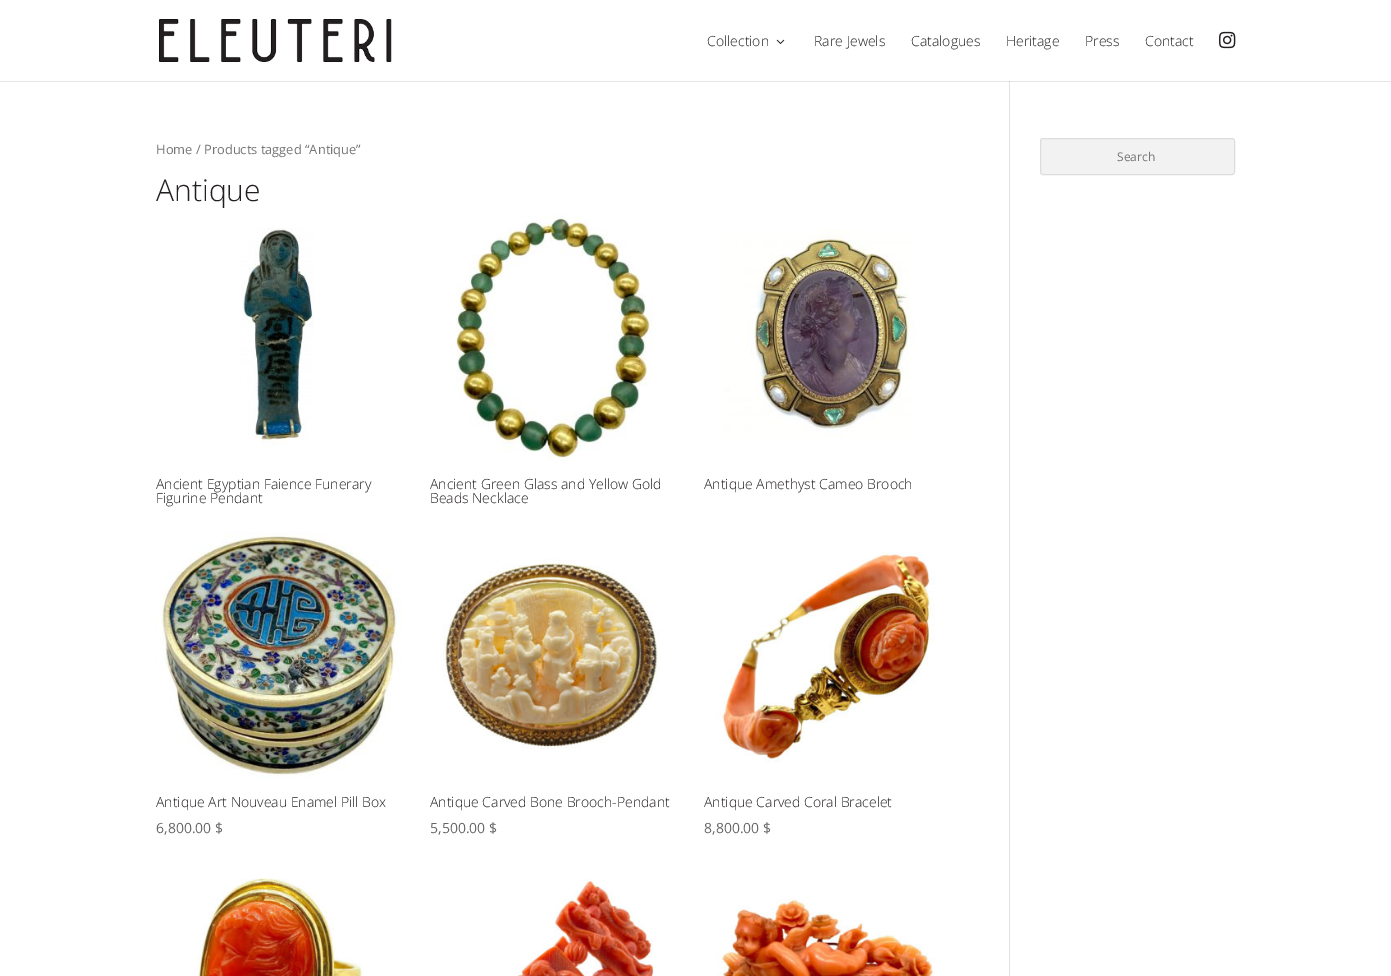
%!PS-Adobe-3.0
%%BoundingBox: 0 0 1391 976
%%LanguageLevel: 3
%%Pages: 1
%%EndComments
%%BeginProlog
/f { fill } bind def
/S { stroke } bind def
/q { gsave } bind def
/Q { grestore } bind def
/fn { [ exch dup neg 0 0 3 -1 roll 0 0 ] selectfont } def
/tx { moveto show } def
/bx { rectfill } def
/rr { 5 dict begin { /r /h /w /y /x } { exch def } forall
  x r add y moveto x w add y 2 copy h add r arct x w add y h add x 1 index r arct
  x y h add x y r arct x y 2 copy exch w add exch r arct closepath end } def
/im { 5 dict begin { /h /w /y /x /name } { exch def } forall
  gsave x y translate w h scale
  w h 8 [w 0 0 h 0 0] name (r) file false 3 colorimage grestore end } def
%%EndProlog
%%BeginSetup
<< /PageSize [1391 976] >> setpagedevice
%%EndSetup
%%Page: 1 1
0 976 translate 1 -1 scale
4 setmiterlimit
1 setgray
0 0 1391 976 bx
0.902 setgray
0 81 1391 1 bx
0.886 setgray
1009 80 1 896 bx
1 setgray
1009 80 1 1 bx
(image0.raw) 159 19 233 43 im
/OpenSans-Light 14 fn
0.137 0.122 0.125 setrgbcolor
(Collection) 707 46 tx
(image1.raw) 776 39 9 5 im
(Rare Jewels) 814 46 tx
(Catalogues) 911 46 tx
(Heritage) 1006 46 tx
(Press) 1085 46 tx
(Contact) 1145 46 tx
(image2.raw) 1219 31 17 18 im
0.796 setgray
1009 81 1 1 bx
/OpenSans-Regular 12.9 fn
0.463 setgray
(Home / Products tagged “Antique”) 156 154 tx
/OpenSans-Light 30 fn
0.137 0.122 0.125 setrgbcolor
(Antique) 156 201 tx
(image3.raw) 241 228 73 220 im
/OpenSans-Light 14 fn
(Ancient Egyptian Faience Funerary) 156 489 tx
(Figurine Pendant) 156 503 tx
(image4.raw) 455 215 198 246 im
(Ancient Green Glass and Yellow Gold) 430 489 tx
(Beads Necklace) 430 503 tx
(image5.raw) 724 230 191 208 im
(Antique Amethyst Cameo Brooch) 704 489 tx
(image6.raw) 156 532 246 247 im
(Antique Art Nouveau Enamel Pill Box) 156 807 tx
/OpenSans-Regular 14 fn
0.4 setgray
(6,800.00 $) 156 833 tx
(image7.raw) 443 559 217 190 im
/OpenSans-Light 14 fn
0.137 0.122 0.125 setrgbcolor
(Antique Carved Bone Brooch-Pendant) 430 807 tx
/OpenSans-Regular 14 fn
0.4 setgray
(5,500.00 $) 430 833 tx
(image8.raw) 717 552 218 211 im
/OpenSans-Light 14 fn
0.137 0.122 0.125 setrgbcolor
(Antique Carved Coral Bracelet) 704 807 tx
/OpenSans-Regular 14 fn
0.4 setgray
(8,800.00 $) 704 833 tx
(image9.raw) 197 877 167 99 im
(image10.raw) 516 879 138 97 im
(image11.raw) 717 898 218 78 im
0.949 setgray
1040.5 138.5 194 36 2.5 rr q f Q
0.867 setgray
S
/OpenSans-Regular 12 fn
0.463 setgray
(Search) 1117 161 tx
showpage
%%EOF
